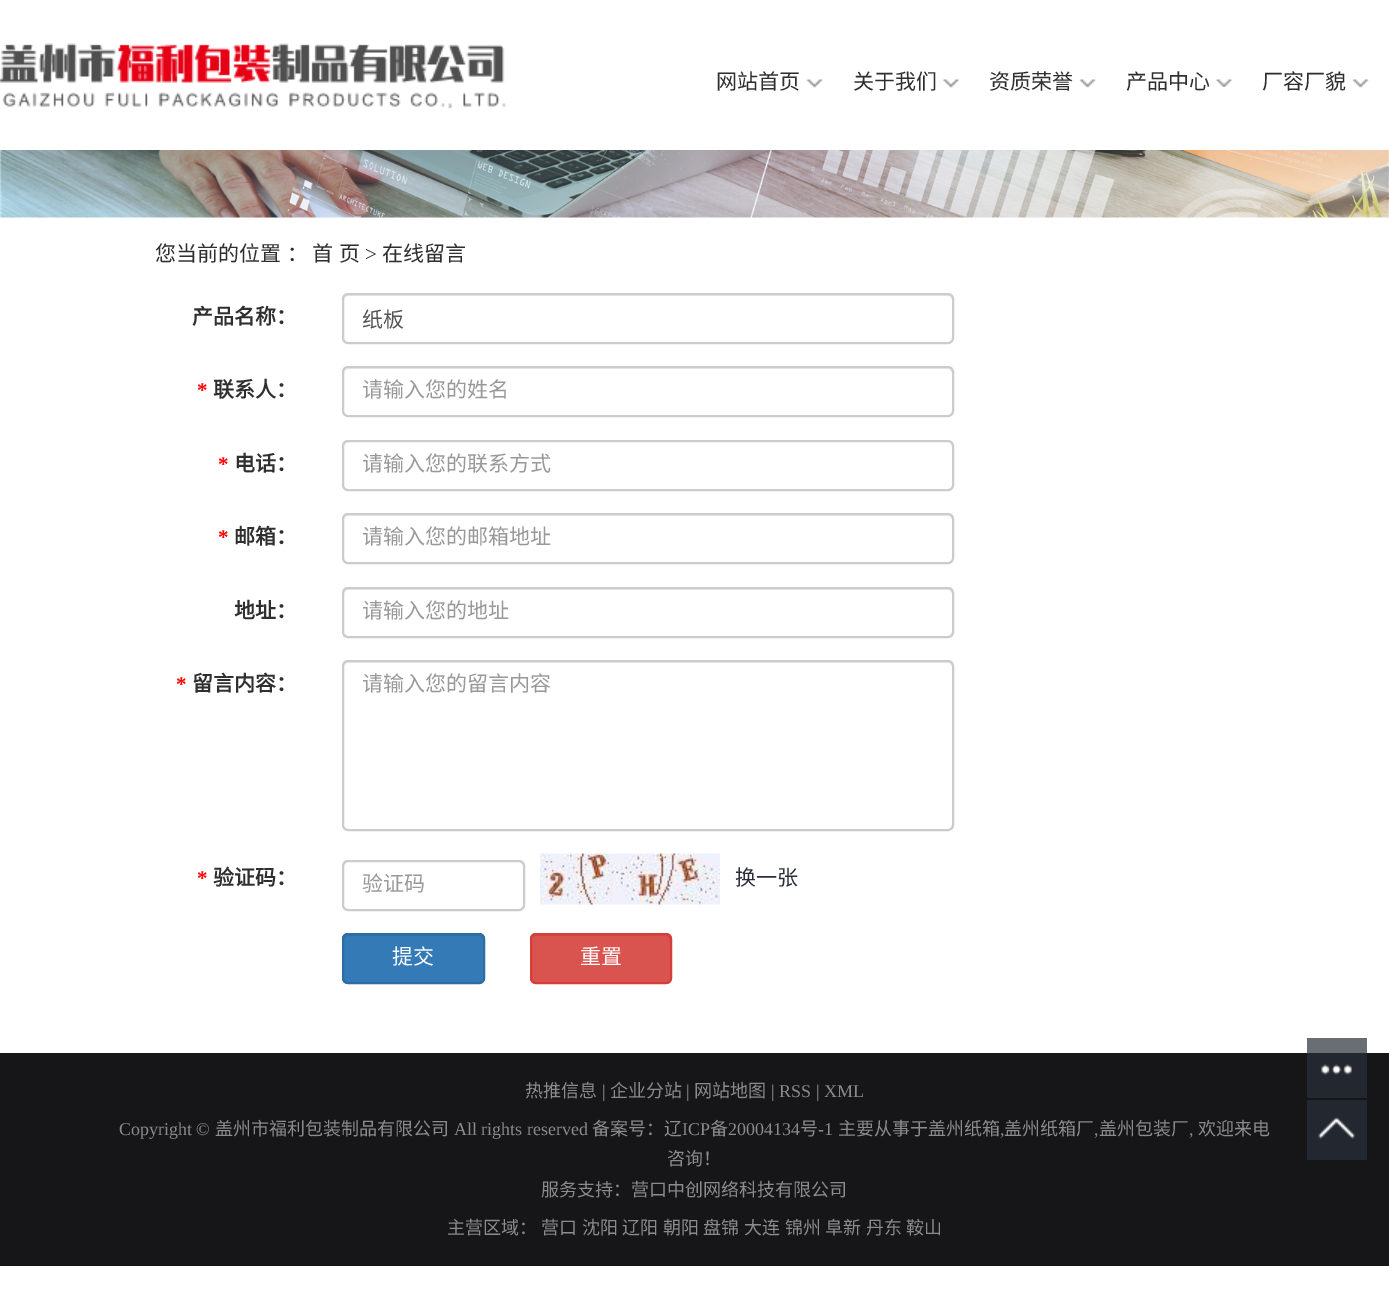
%!PS-Adobe-3.0
%%BoundingBox: 0 0 1389 1311
%%LanguageLevel: 3
%%Pages: 1
%%EndComments
%%BeginProlog
/m { moveto } bind def
/l { lineto } bind def
/c { curveto } bind def
/h { closepath } bind def
/f { fill } bind def
/S { stroke } bind def
/w { setlinewidth } bind def
/fn { [ exch dup neg 0 0 3 -1 roll 0 0 ] selectfont } def
/tx { moveto show } def
/bx { rectfill } def
/rr { 5 dict begin { /r /h /w /y /x } { exch def } forall
  x r add y moveto x w add y 2 copy h add r arct x w add y h add x 1 index r arct
  x y h add x y r arct x y 2 copy exch w add exch r arct closepath end } def
/im { 5 dict begin { /h /w /y /x /name } { exch def } forall
  gsave x y translate w h scale
  w h 8 [w 0 0 h 0 0] name (r) file false 3 colorimage grestore end } def
%%EndProlog
%%BeginSetup
<< /PageSize [1389 1311] >> setpagedevice
%%EndSetup
%%Page: 1 1
0 1311 translate 1 -1 scale
4 setmiterlimit
1 setgray
0 0 1389 1311 bx
0.412 0.427 0.455 setrgbcolor
1307 1038 60 15 bx
(image0.raw) 0 43 506 66 im
(image1.raw) 806 79 17 9 im
/NotoSansCJKSC-Regular 21 fn
0.184 setgray
(网站首页) 716 89 tx
(image2.raw) 943 79 16 9 im
(关于我们) 853 89 tx
(image1.raw) 1079 79 17 9 im
(资质荣誉) 989 89 tx
(image3.raw) 1216 79 16 8 im
(产品中心) 1126 89 tx
(image1.raw) 1352 79 17 9 im
(厂容厂貌) 1262 89 tx
(image4.raw) 0 150 1389 68 im
155 261 m 1 0 32 (您当前的位置 ：) widthshow
312 261 m 1 0 32 (首 页) widthshow
/LiberationSerif-Regular 21 fn
(>) 365 261 tx
/NotoSansCJKSC-Regular 21 fn
(在线留言) 382 261 tx
/NotoSansCJKSC-Bold 21 fn
(产品名称：) 192 324 tx
0.925 setgray
348 296 m 948 296 l 950 296 952 298 952 300 c 952 340 l 953 339 953 338 953 337 c 953 299 l 953 296 951 294 948 294 c 349 294 l 346 294 344 296 344 299 c 344 300 l 344 298 346 296 348 296 c h f
0.8 setgray
2 w
343 294 610 49 5 rr S
/NotoSansCJKSC-Regular 21 fn
0.333 setgray
(纸板) 362 327 tx
/LiberationSerif-Bold 21 fn
1 0 0 setrgbcolor
(*) 197 397 tx
/NotoSansCJKSC-Bold 21 fn
0.184 setgray
(联系人：) 213 397 tx
0.925 setgray
348 369 m 948 369 l 950 369 952 371 952 374 c 952 412 l 951 415 l 952 414 953 412 953 411 c 953 373 l 953 370 951 368 948 368 c 349 368 l 346 368 344 370 344 373 c 344 374 l 344 371 346 369 348 369 c h f
0.8 setgray
343 367 610 49 5 rr S
/NotoSansCJKSC-Regular 21 fn
0.6 setgray
(请输入您的姓名) 362 397 tx
/LiberationSerif-Bold 21 fn
1 0 0 setrgbcolor
(*) 218 471 tx
/NotoSansCJKSC-Bold 21 fn
0.184 setgray
(电话：) 234 471 tx
0.925 setgray
348 442 m 948 442 l 950 442 952 445 952 447 c 952 487 l 953 486 953 485 953 484 c 953 446 l 953 443 951 441 948 441 c 349 441 l 346 441 344 443 344 446 c 344 447 l 344 445 346 442 348 442 c h f
0.8 setgray
343 441 610 49 5 rr S
/NotoSansCJKSC-Regular 21 fn
0.6 setgray
(请输入您的联系方式) 362 471 tx
/LiberationSerif-Bold 21 fn
1 0 0 setrgbcolor
(*) 218 544 tx
/NotoSansCJKSC-Bold 21 fn
0.184 setgray
(邮箱：) 234 544 tx
0.925 setgray
348 516 m 948 516 l 950 516 952 518 952 520 c 952 561 l 953 560 953 559 953 558 c 953 520 l 953 517 951 515 948 515 c 349 515 l 346 515 344 517 344 520 c 344 518 346 516 348 516 c h f
0.8 setgray
343 514 610 49 5 rr S
/NotoSansCJKSC-Regular 21 fn
0.6 setgray
(请输入您的邮箱地址) 362 544 tx
/NotoSansCJKSC-Bold 21 fn
0.184 setgray
(地址：) 234 618 tx
0.925 setgray
348 590 m 948 590 l 950 590 952 592 952 594 c 952 634 l 953 633 953 632 953 631 c 953 593 l 953 590 951 588 948 588 c 349 588 l 346 588 344 590 344 593 c 344 594 l 344 592 346 590 348 590 c h f
0.8 setgray
343 588 610 49 5 rr S
/NotoSansCJKSC-Regular 21 fn
0.6 setgray
(请输入您的地址) 362 618 tx
/LiberationSerif-Bold 21 fn
1 0 0 setrgbcolor
(*) 176 691 tx
/NotoSansCJKSC-Bold 21 fn
0.184 setgray
(留言内容：) 192 691 tx
0.925 setgray
348 663 m 948 663 l 950 663 952 665 952 668 c 952 826 l 951 829 l 952 828 953 826 953 825 c 953 667 l 953 664 951 662 948 662 c 349 662 l 346 662 344 664 344 667 c 344 668 l 344 665 346 663 348 663 c h f
0.8 setgray
343 661 610 169 5 rr S
/NotoSansCJKSC-Regular 21 fn
0.6 setgray
(请输入您的留言内容) 362 691 tx
/LiberationSerif-Bold 21 fn
1 0 0 setrgbcolor
(*) 197 885 tx
/NotoSansCJKSC-Bold 21 fn
0.184 setgray
(验证码：) 213 885 tx
0.925 setgray
348 862 m 519 862 l 521 862 524 865 524 867 c 524 864 523 862 520 861 c 349 861 l 346 861 344 864 344 867 c 344 865 346 862 348 862 c h f
0.8 setgray
343 861 181 49 5 rr S
/NotoSansCJKSC-Regular 21 fn
0.6 setgray
(验证码) 362 891 tx
(image5.raw) 540 853 180 52 im
0.161 0.18 0.224 setrgbcolor
(换一张) 735 885 tx
0.2 0.478 0.718 setrgbcolor
342 933 143 51 6 rr f
0.184 0.443 0.663 setrgbcolor
348 936 m 478 936 l 481 936 483 938 483 940 c 483 937 481 935 478 935 c 349 935 l 346 935 344 937 344 940 c 344 938 346 936 348 936 c h f
0.18 0.427 0.643 setrgbcolor
343 934 141 49 5 rr S
1 setgray
(提交) 392 964 tx
0.851 0.325 0.31 setrgbcolor
530 933 142 51 6 rr f
0.788 0.302 0.286 setrgbcolor
536 936 m 644 936 l 672 936 670 931 670 953 c 670 981 l 671 980 671 979 671 978 c 671 940 l 671 937 669 935 666 935 c 536 935 l 533 935 531 937 531 940 c 531 938 533 936 536 936 c h f
0.831 0.247 0.227 setrgbcolor
531 934 140 49 5 rr S
1 setgray
(重置) 580 964 tx
0.086 0.086 0.094 setrgbcolor
0 1053 1389 213 bx
0.137 0.153 0.184 setrgbcolor
1307 1053 60 45 bx
(image6.raw) 1321 1064 31 11 im
1307 1100 60 60 bx
(image7.raw) 1318 1117 37 22 im
/NotoSansCJKSC-Regular 18 fn
0.545 0.545 0.549 setrgbcolor
(热推信息) 525 1097 tx
/LiberationSerif-Regular 18 fn
(|) 602 1097 tx
/NotoSansCJKSC-Regular 18 fn
(企业分站) 610 1097 tx
/LiberationSerif-Regular 18 fn
(|) 686 1097 tx
/NotoSansCJKSC-Regular 18 fn
(网站地图) 694 1097 tx
/LiberationSerif-Regular 18 fn
(| RSS | XML) 771 1097 tx
(Copyright ©) 119 1135 tx
/NotoSansCJKSC-Regular 18 fn
(盖州市福利包装制品有限公司) 215 1135 tx
/LiberationSerif-Regular 18 fn
(All rights reserved) 454 1135 tx
/NotoSansCJKSC-Regular 18 fn
(备案号：辽) 592 1135 tx
/LiberationSerif-Regular 18 fn
(ICP) 682 1135 tx
/NotoSansCJKSC-Regular 18 fn
(备) 710 1135 tx
/LiberationSerif-Regular 18 fn
(20004134) 728 1135 tx
/NotoSansCJKSC-Regular 18 fn
(号) 800 1135 tx
/LiberationSerif-Regular 18 fn
(-1) 818 1135 tx
/NotoSansCJKSC-Regular 18 fn
(主要从事于盖州纸箱) 838 1135 tx
(盖州纸箱厂) 1004 1135 tx
(盖州包装厂) 1099 1135 tx
(欢迎来电) 1198 1135 tx
/LiberationSerif-Regular 18 fn
(,) 1000 1135 tx
(,) 1094 1135 tx
(,) 1189 1135 tx
/NotoSansCJKSC-Regular 18 fn
(咨询！) 667 1165 tx
(服务支持：营口中创网络科技有限公司) 541 1196 tx
(主营区域：) 447 1234 tx
(营口) 541 1234 tx
(沈阳) 582 1234 tx
(辽阳) 622 1234 tx
(朝阳) 663 1234 tx
(盘锦) 703 1234 tx
(大连) 744 1234 tx
(锦州) 785 1234 tx
(阜新) 825 1234 tx
(丹东) 866 1234 tx
(鞍山) 906 1234 tx
showpage
%%EOF
